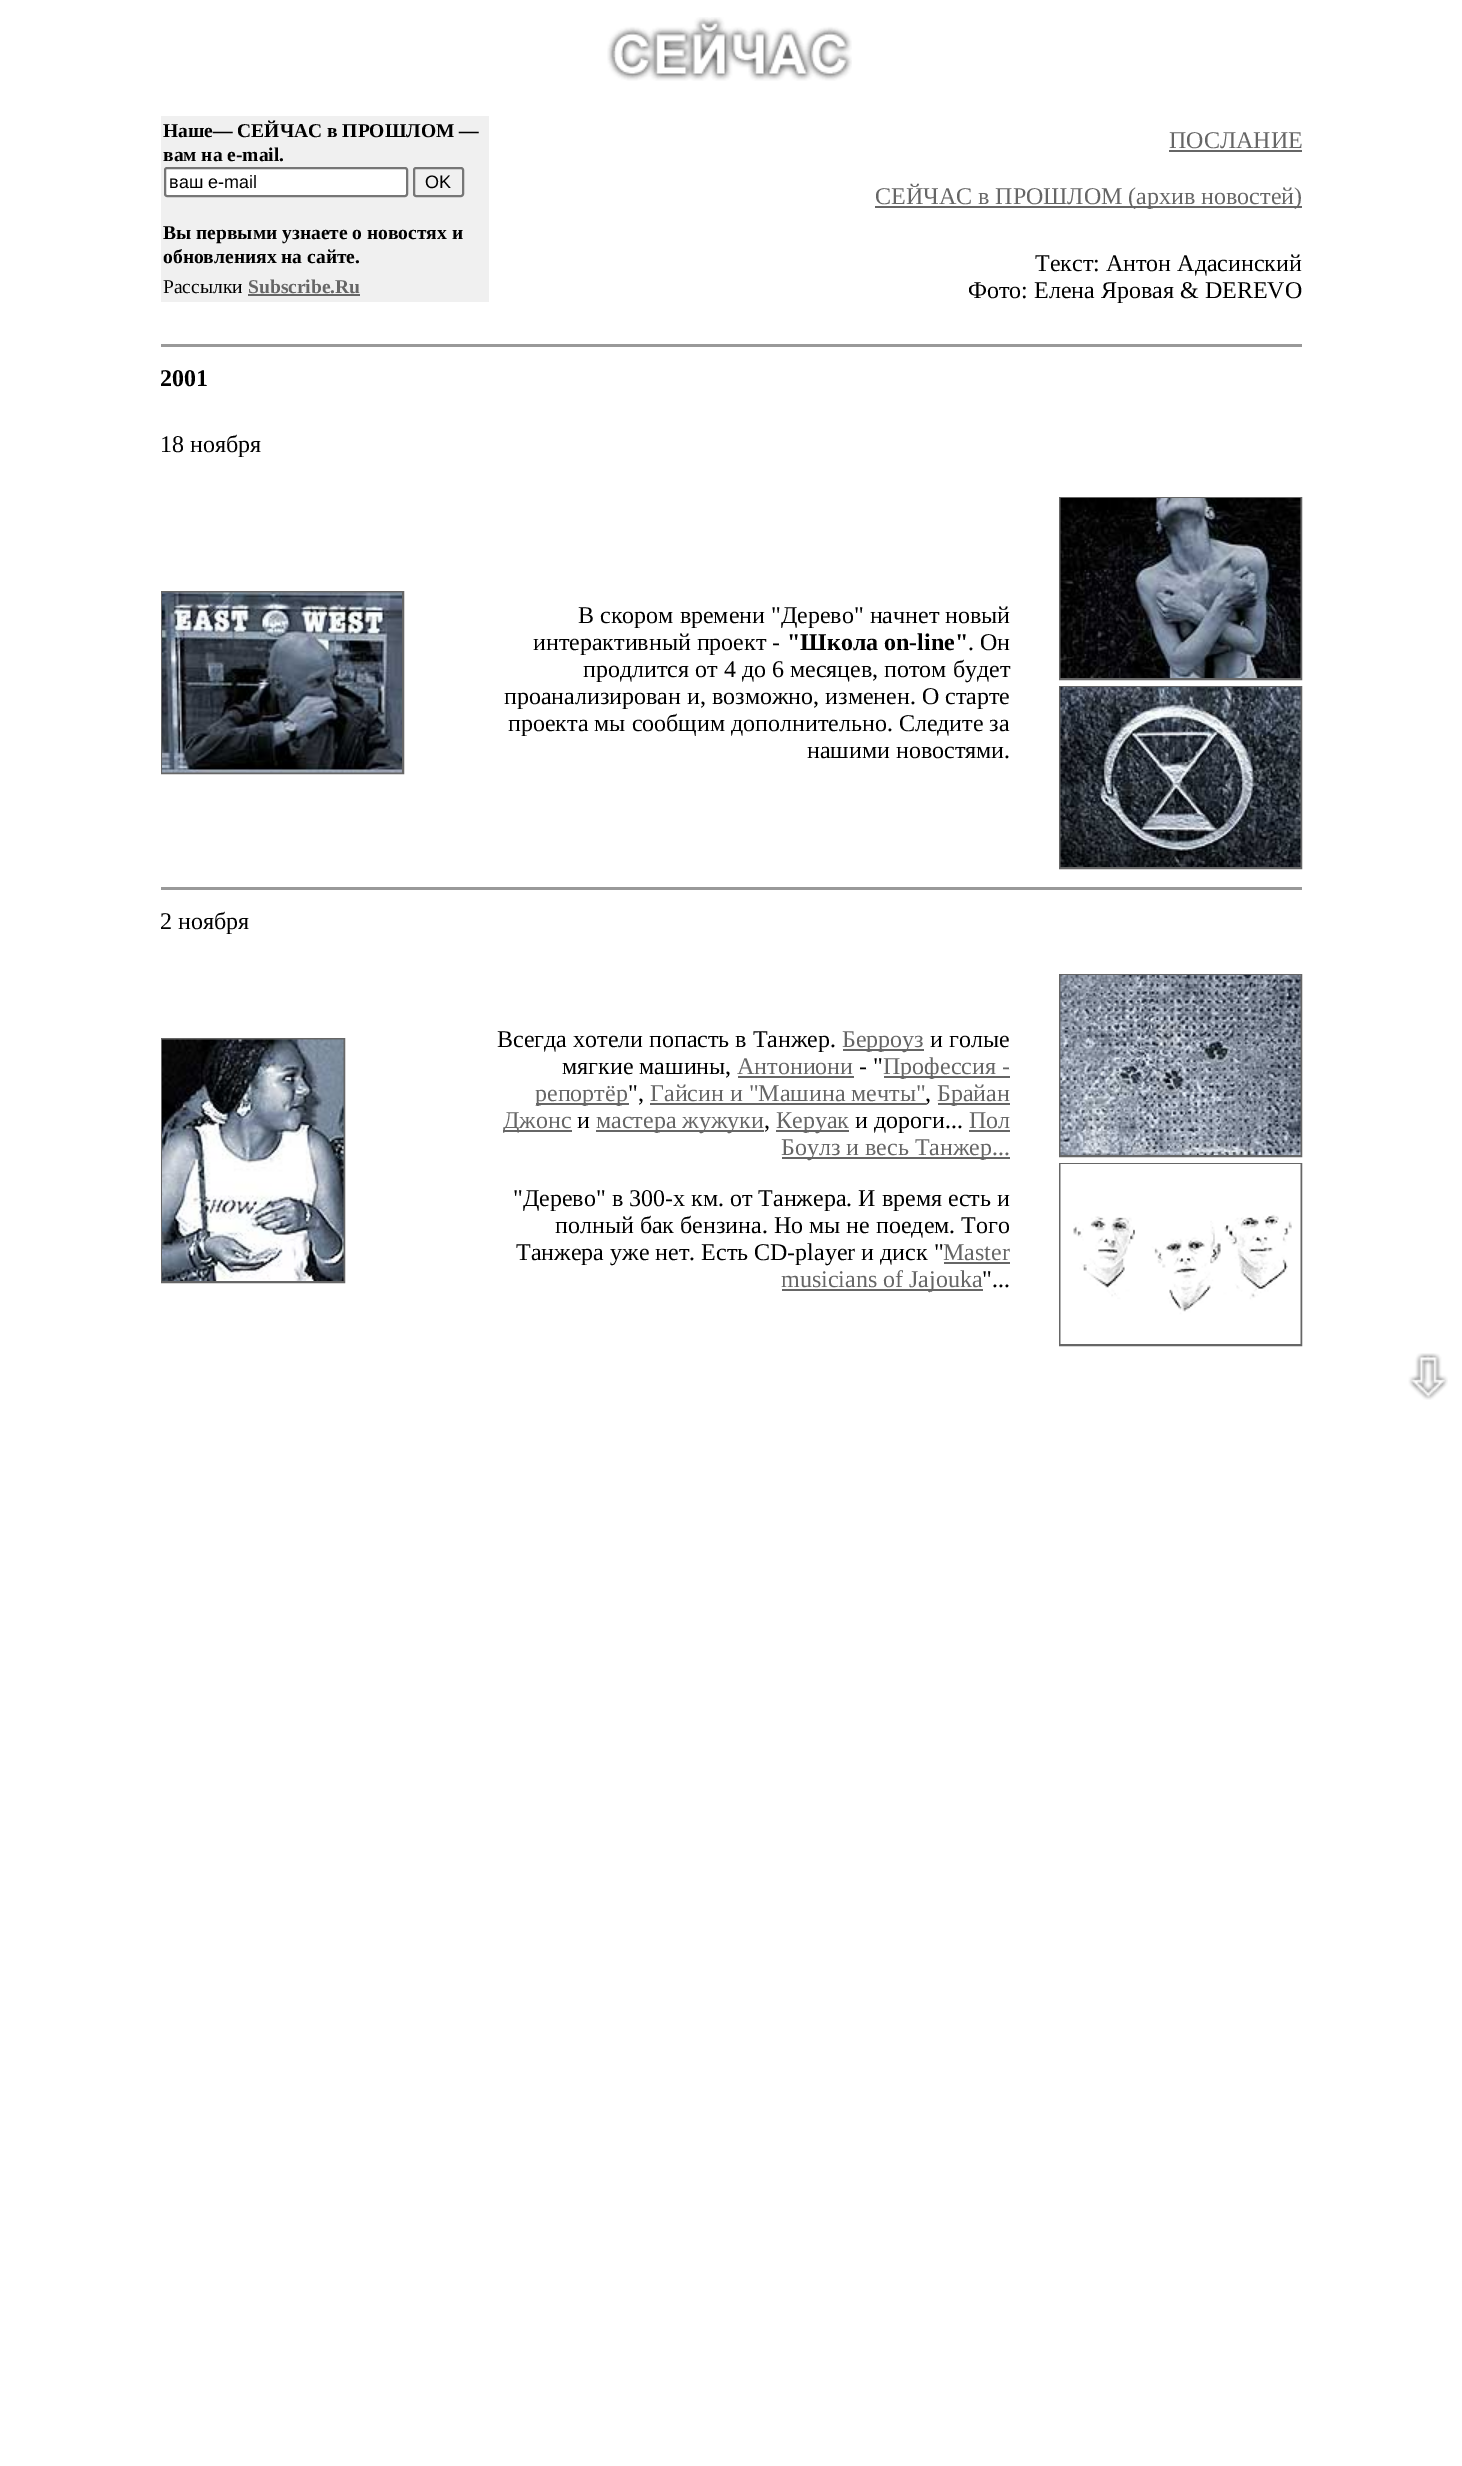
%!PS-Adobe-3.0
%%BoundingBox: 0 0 1462 2466
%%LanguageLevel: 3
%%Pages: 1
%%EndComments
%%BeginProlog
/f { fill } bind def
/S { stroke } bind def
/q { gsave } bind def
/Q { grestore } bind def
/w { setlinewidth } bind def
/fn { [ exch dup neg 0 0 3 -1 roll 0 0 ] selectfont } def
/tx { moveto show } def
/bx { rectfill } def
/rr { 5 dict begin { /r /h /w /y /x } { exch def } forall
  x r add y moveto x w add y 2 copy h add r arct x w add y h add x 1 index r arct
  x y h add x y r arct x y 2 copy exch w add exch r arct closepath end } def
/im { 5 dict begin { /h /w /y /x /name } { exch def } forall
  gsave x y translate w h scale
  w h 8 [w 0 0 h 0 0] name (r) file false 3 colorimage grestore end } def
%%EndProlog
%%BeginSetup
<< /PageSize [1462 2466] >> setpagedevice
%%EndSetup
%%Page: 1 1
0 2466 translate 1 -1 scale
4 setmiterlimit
1 setgray
0 0 1462 2466 bx
(image0.raw) 607 17 245 64 im
0.941 setgray
161 116 328 186 bx
/LiberationSerif-Bold 19.5 fn
0 setgray
(Наше— СЕЙЧАС в ПРОШЛОМ —) 163 137 tx
(вам на e-mail.) 163 161 tx
1 setgray
165 168 242 28 2 rr q f Q
0.463 setgray
2 w
S
/LiberationSans-Regular 18 fn
0 setgray
(ваш e-mail) 169 188 tx
0.463 setgray
414 168 49 28 2 rr S
0 setgray
(OK) 425 188 tx
/LiberationSerif-Bold 19.5 fn
(Вы первыми узнаете о новостях и) 163 239 tx
(обновлениях на сайте.) 163 263 tx
/LiberationSerif-Regular 19.5 fn
(Рассылки) 163 293 tx
/LiberationSerif-Bold 19.5 fn
0.4 setgray
(Subscribe.Ru) 248 293 tx
248 294 112 2 bx
/LiberationSerif-Regular 24 fn
(ПОСЛАНИЕ) 1169 148 tx
1169 150 133 2 bx
875 206 427 2 bx
(СЕЙЧАС в ПРОШЛОМ \(архив новостей\)) 875 204 tx
0 setgray
(Текст: Антон Адасинский) 1035 271 tx
(Фото: Елена Яровая & DEREVO) 968 298 tx
0.6 setgray
161 344 1141 3 bx
/LiberationSerif-Bold 24 fn
0 setgray
(2001) 160 386 tx
/LiberationSerif-Regular 24 fn
(18 ноября) 160 452 tx
0.4 setgray
162 592 241 181 rectstroke
(image1.raw) 162 592 240 181 im
0 setgray
(В скором времени "Дерево" начнет новый) 578 623 tx
(интерактивный проект -) 533 650 tx
/LiberationSerif-Bold 24 fn
("Школа on-line") 787 650 tx
/LiberationSerif-Regular 24 fn
(. Он) 968 650 tx
(продлится от 4 до 6 месяцев, потом будет) 583 677 tx
(проанализирован и, возможно, изменен. О старте) 504 704 tx
(проекта мы сообщим дополнительно. Следите за) 508 731 tx
(нашими новостями.) 807 758 tx
0.4 setgray
1060 498 241 181 rectstroke
(image2.raw) 1060 498 241 180 im
1060 687 241 181 rectstroke
(image3.raw) 1060 687 241 180 im
0.6 setgray
161 887 1141 3 bx
0 setgray
(2 ноября) 160 929 tx
0.4 setgray
162 1039 182 243 rectstroke
(image4.raw) 162 1039 182 242 im
0 setgray
(Всегда хотели попасть в Танжер.) 497 1047 tx
0.4 setgray
843 1049 81 2 bx
(Берроуз) 842 1047 tx
0 setgray
(и голые) 930 1047 tx
(мягкие машины,) 562 1074 tx
0.4 setgray
(Антониони) 737 1074 tx
738 1076 116 2 bx
0 setgray
(- ") 859 1074 tx
0.4 setgray
884 1076 126 2 bx
(Профессия -) 883 1074 tx
536 1103 93 2 bx
(репортёр) 535 1101 tx
0 setgray
(",) 628 1101 tx
0.4 setgray
(Гайсин и "Машина мечты") 650 1101 tx
650 1103 276 2 bx
0 setgray
(,) 925 1101 tx
0.4 setgray
938 1103 72 2 bx
(Брайан) 937 1101 tx
503 1130 69 2 bx
(Джонс) 503 1128 tx
0 setgray
(и) 577 1128 tx
0.4 setgray
596 1130 168 2 bx
(мастера жужуки) 596 1128 tx
0 setgray
(,) 764 1128 tx
0.4 setgray
776 1130 73 2 bx
(Керуак) 776 1128 tx
0 setgray
(и дороги...) 855 1128 tx
0.4 setgray
(Пол) 969 1128 tx
969 1130 41 2 bx
782 1157 228 2 bx
(Боулз и весь Танжер...) 781 1155 tx
0 setgray
("Дерево" в 300-х км. от Танжера. И время есть и) 513 1206 tx
(полный бак бензина. Но мы не поедем. Того) 555 1233 tx
(Танжера уже нет. Есть CD-player и диск ") 516 1260 tx
0.4 setgray
(Master) 943 1260 tx
944 1262 66 2 bx
782 1289 201 2 bx
(musicians of Jajouka) 781 1287 tx
0 setgray
("...) 982 1287 tx
0.4 setgray
1060 975 241 181 rectstroke
(image5.raw) 1060 975 241 180 im
1060 1164 241 181 rectstroke
(image6.raw) 1060 1164 241 180 im
(image7.raw) 1408 1353 40 47 im
showpage
%%EOF
